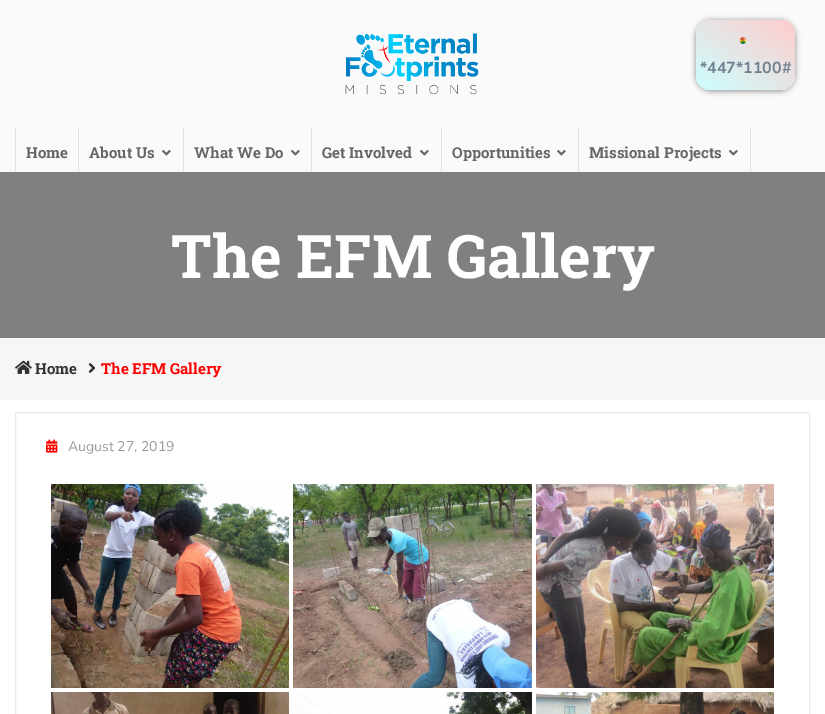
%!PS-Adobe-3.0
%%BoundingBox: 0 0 825 714
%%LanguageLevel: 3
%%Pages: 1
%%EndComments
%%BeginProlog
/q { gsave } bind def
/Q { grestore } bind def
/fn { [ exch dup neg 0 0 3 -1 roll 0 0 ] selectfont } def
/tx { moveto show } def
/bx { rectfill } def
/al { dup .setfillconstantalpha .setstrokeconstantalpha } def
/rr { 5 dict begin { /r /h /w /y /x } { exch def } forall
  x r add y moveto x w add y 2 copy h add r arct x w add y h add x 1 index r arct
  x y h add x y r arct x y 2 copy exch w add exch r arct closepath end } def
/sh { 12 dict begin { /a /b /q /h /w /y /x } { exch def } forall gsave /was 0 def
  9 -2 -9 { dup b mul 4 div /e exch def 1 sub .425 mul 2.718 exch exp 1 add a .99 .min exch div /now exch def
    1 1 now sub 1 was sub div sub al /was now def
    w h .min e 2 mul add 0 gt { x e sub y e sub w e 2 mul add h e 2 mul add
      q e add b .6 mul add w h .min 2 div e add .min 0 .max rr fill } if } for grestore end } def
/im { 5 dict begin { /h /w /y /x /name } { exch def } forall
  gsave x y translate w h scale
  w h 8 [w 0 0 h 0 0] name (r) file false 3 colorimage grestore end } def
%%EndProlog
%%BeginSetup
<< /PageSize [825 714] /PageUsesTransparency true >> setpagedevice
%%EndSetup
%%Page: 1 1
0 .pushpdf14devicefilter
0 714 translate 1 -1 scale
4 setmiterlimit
1 setgray
0 0 825 714 bx
0.98 setgray
0 0 825 172 bx
(image0.raw) 345 33 134 62 im
0 setgray
696 22 99 70 15 2.5 0.19 sh
695 19 101 72 16 2.5 0.2 sh
q 696 20 99 70 15 rr clip newpath
<< /ShadingType 2 /ColorSpace /DeviceRGB /Coords [713 102 778 8] /Extend [true true] /Function << /FunctionType 2 /Domain [0 1] /C0 [0.8 1 1] /C1 [1 0.8 0.8] /N 1 >> >> shfill Q
(image1.raw) 740 37 6 7 im
/NunitoSans-Bold 16 fn
0.439 0.502 0.565 setrgbcolor
(*447*1100#) 700 73 tx
0.886 setgray
15 127 1 45 bx
/RobotoSlab-Bold 15 fn
0.4 setgray
(Home) 26 158 tx
0.886 setgray
78 127 1 45 bx
0.4 setgray
(About Us) 89 158 tx
(image2.raw) 162 150 9 6 im
0.886 setgray
183 127 1 45 bx
0.4 setgray
(What We Do) 194 158 tx
(image2.raw) 291 150 9 6 im
0.886 setgray
311 127 1 45 bx
0.4 setgray
(Get Involved) 322 158 tx
(image2.raw) 420 150 9 6 im
0.886 setgray
441 127 1 45 bx
0.4 setgray
(Opportunities) 452 158 tx
(image2.raw) 557 150 9 6 im
0.886 setgray
750 127 1 45 bx
578 127 1 45 bx
0.4 setgray
(Missional Projects) 589 158 tx
(image2.raw) 729 150 9 6 im
0.502 setgray
0 172 825 166 bx
/RobotoSlab-Bold 60 fn
1 setgray
(The EFM Gallery) 171 278 tx
0.965 setgray
0 338 825 62 bx
(image3.raw) 15 360 17 14 im
/RobotoSlab-Bold 15 fn
0.2 setgray
(Home) 35 374 tx
(image4.raw) 88 363 8 10 im
1 0 0 setrgbcolor
(The EFM Gallery) 101 374 tx
0.918 setgray
15.5 412.5 794 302 rectstroke
(image5.raw) 46 439 12 14 im
/NunitoSans-Regular 14 fn
0.6 setgray
(August 27, 2019) 68 451 tx
(image6.raw) 51 484 238 204 im
(image7.raw) 293 484 239 204 im
(image8.raw) 536 484 238 204 im
(image9.raw) 51 692 238 22 im
(image10.raw) 293 692 239 22 im
(image11.raw) 536 692 238 22 im
.poppdf14devicefilter showpage
%%EOF
